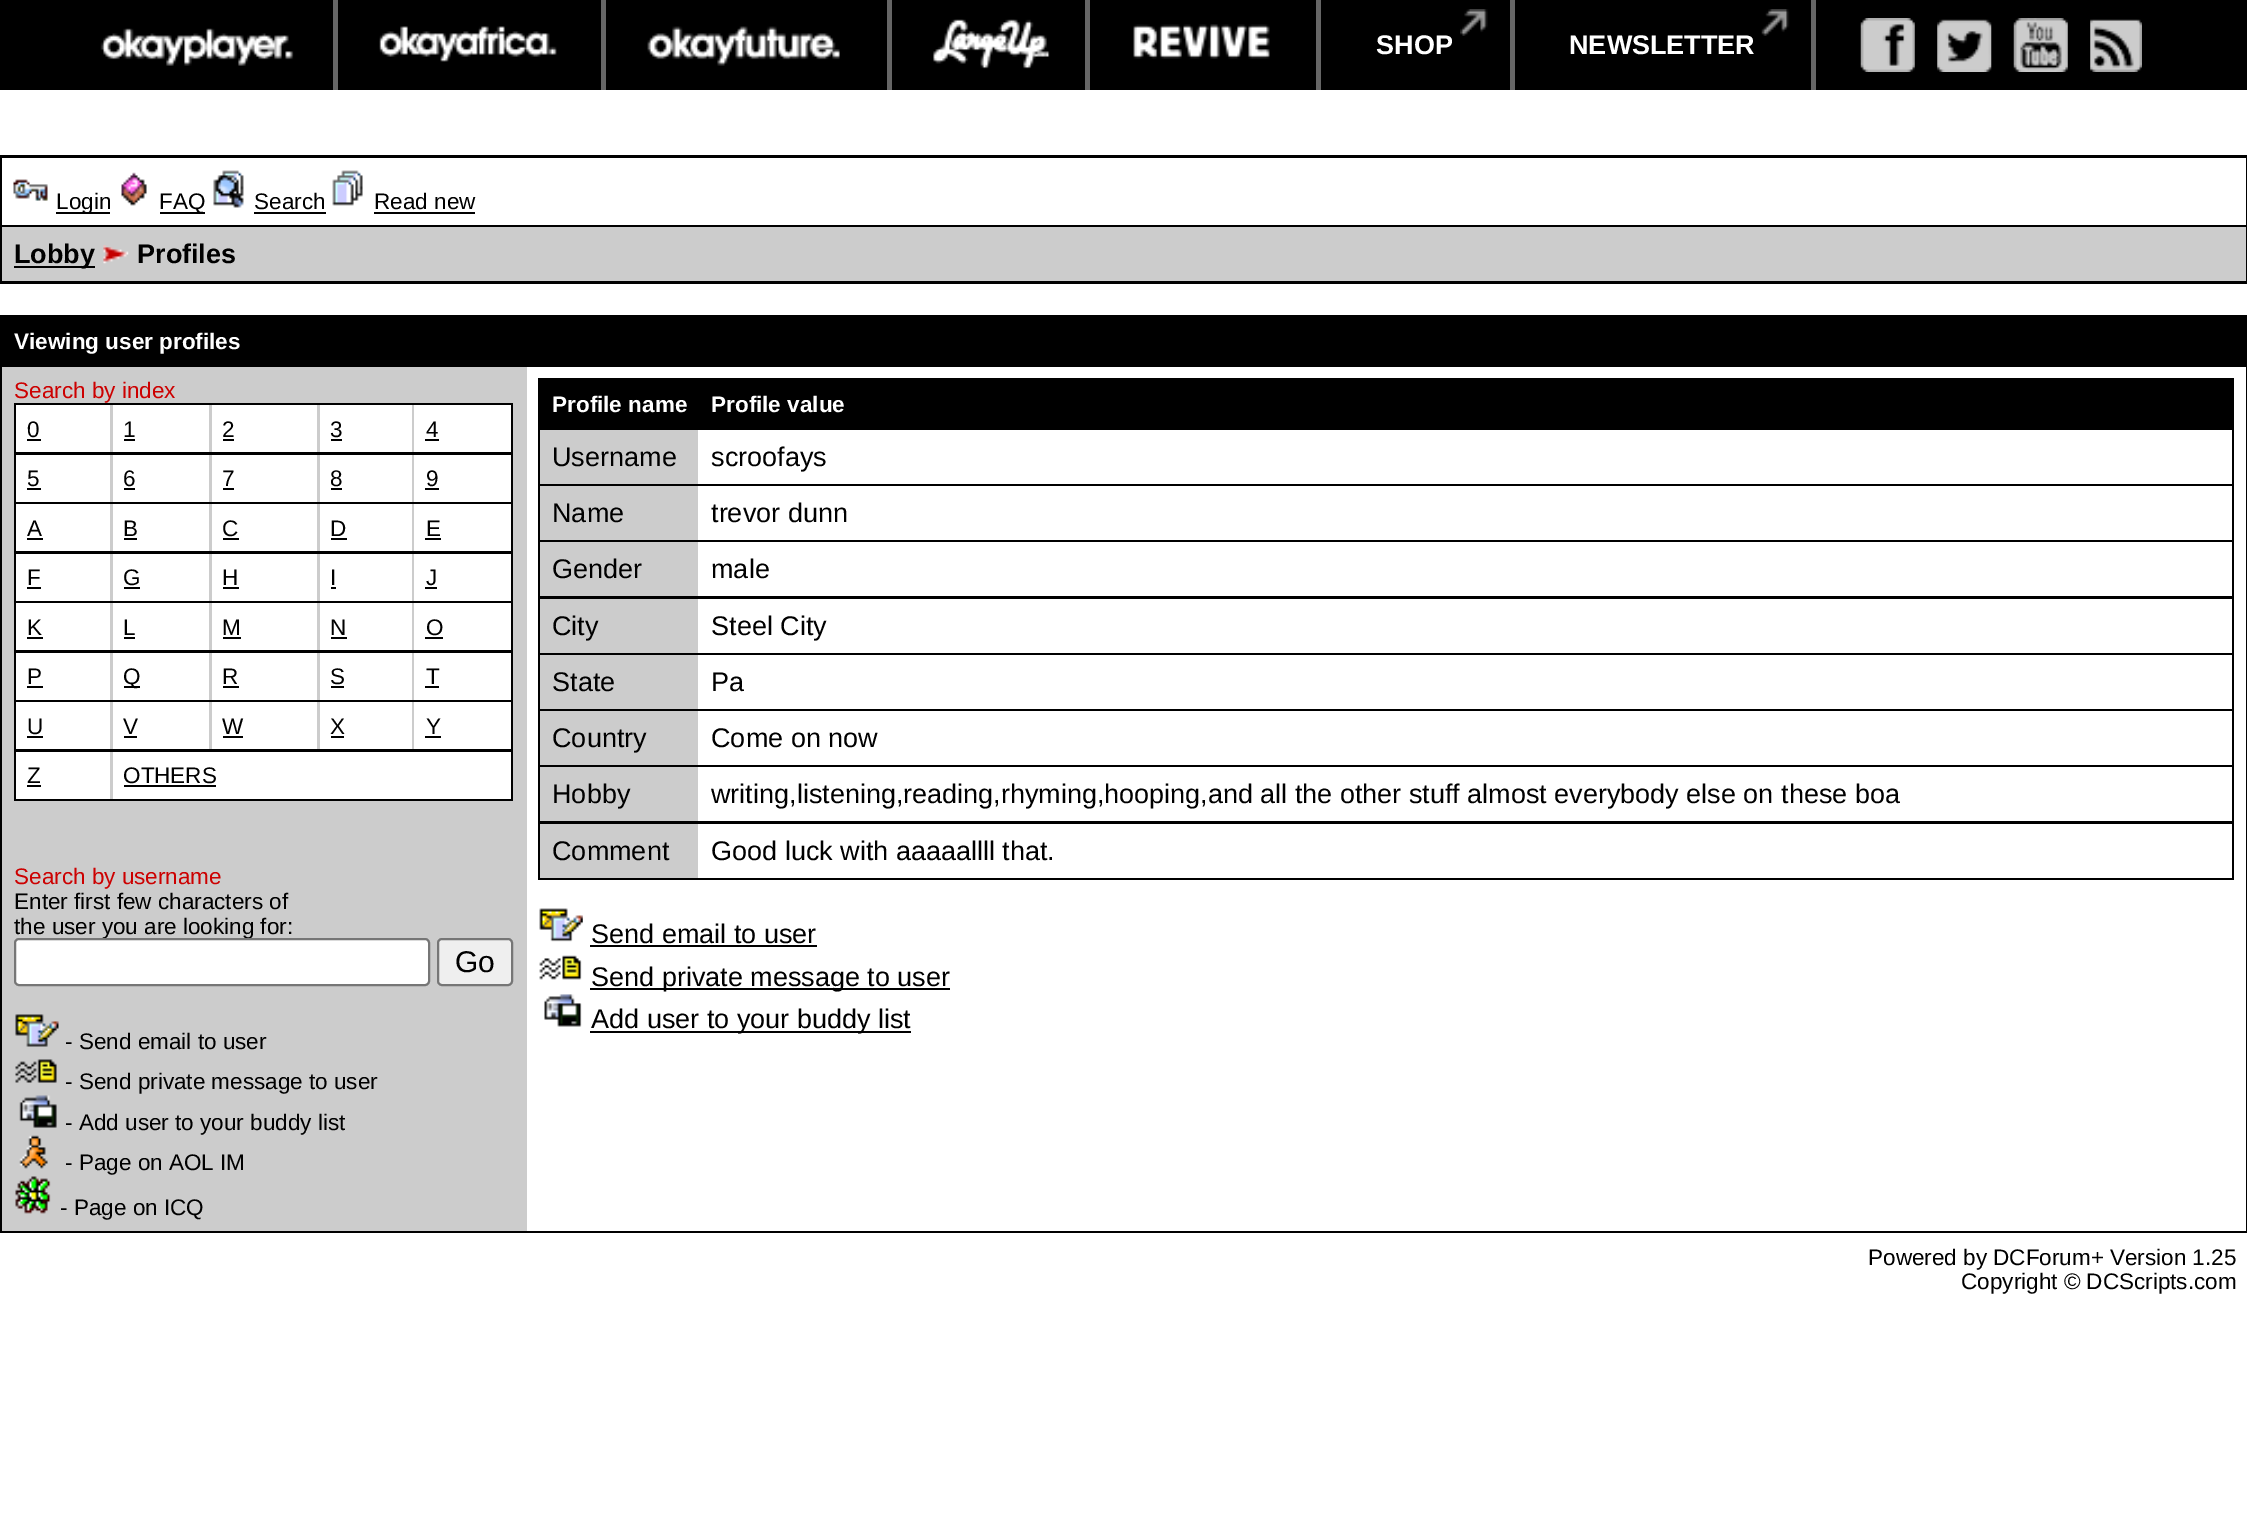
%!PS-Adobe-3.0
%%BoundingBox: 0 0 2247 1532
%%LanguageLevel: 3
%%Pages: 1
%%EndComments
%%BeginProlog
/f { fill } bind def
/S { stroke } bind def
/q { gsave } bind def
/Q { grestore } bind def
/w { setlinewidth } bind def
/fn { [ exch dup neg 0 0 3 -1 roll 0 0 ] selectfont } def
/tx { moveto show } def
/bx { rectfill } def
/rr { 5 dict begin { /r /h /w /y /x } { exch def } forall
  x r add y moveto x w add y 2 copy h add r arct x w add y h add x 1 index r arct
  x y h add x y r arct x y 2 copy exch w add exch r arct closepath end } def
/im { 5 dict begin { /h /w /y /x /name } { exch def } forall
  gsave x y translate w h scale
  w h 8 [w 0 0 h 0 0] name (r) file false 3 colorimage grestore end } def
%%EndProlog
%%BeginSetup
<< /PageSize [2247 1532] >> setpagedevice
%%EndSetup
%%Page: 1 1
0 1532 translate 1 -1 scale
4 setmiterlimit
1 setgray
0 0 2247 1532 bx
0 setgray
0 0 2247 90 bx
0.4 setgray
333 0 5 90 bx
(image0.raw) 100 28 194 38 im
601 0 5 90 bx
(image1.raw) 379 26 178 36 im
887 0 5 90 bx
(image2.raw) 647 26 193 40 im
1085 0 5 90 bx
(image3.raw) 933 19 117 50 im
1316 0 5 90 bx
(image4.raw) 1133 24 137 35 im
1510 0 5 90 bx
(image5.raw) 1460 9 28 27 im
/LiberationSans-Bold 27 fn
1 setgray
(SHOP) 1376 54 tx
0.4 setgray
1811 0 5 90 bx
(image6.raw) 1761 9 29 27 im
1 setgray
(NEWSLETTER) 1569 54 tx
(image7.raw) 1860 18 55 54 im
(image8.raw) 1937 19 55 53 im
(image9.raw) 2013 18 55 54 im
(image10.raw) 2090 19 52 53 im
0 setgray
0 155 2247 129 bx
1 setgray
2 158 2244 67 bx
(image11.raw) 13 179 35 22 im
0 setgray
56 212 54 2 bx
/LiberationSans-Regular 22.5 fn
(Login) 56 209 tx
(image12.raw) 121 172 26 34 im
160 212 45 2 bx
(FAQ) 159 209 tx
(image13.raw) 213 170 31 38 im
(Search) 254 209 tx
254 212 72 2 bx
(image14.raw) 332 170 31 36 im
(Read new) 374 209 tx
374 212 101 2 bx
0.8 setgray
2 227 2244 54 bx
0 setgray
14 266 81 2 bx
/LiberationSans-Bold 27 fn
(Lobby) 14 263 tx
(image15.raw) 103 245 26 19 im
(Profiles) 137 263 tx
0 315 2247 918 bx
/LiberationSans-Bold 22.5 fn
1 setgray
(Viewing user profiles) 14 349 tx
0.8 setgray
2 367 525 864 bx
/LiberationSans-Regular 22.5 fn
0.8 0 0 setrgbcolor
(Search by index) 14 398 tx
0 setgray
14 403 499 398 bx
0.8 setgray
110 405 304 47 bx
1 setgray
16 405 94 47 bx
0 setgray
(0) 27 437 tx
27 439 14 2 bx
1 setgray
113 405 96 47 bx
0 setgray
(1) 123 437 tx
124 439 11 2 bx
1 setgray
212 405 105 47 bx
0 setgray
(2) 222 437 tx
223 439 11 2 bx
1 setgray
320 405 92 47 bx
0 setgray
(3) 330 437 tx
331 439 11 2 bx
1 setgray
414 405 97 47 bx
0 setgray
(4) 426 437 tx
425 439 14 2 bx
0.8 setgray
110 455 304 47 bx
1 setgray
16 455 94 47 bx
0 setgray
(5) 27 486 tx
27 488 14 2 bx
1 setgray
113 455 96 47 bx
0 setgray
(6) 123 486 tx
124 488 11 2 bx
1 setgray
212 455 105 47 bx
0 setgray
(7) 222 486 tx
223 488 11 2 bx
1 setgray
320 455 92 47 bx
0 setgray
(8) 330 486 tx
331 488 11 2 bx
1 setgray
414 455 97 47 bx
0 setgray
(9) 426 486 tx
425 488 14 2 bx
0.8 setgray
110 504 304 47 bx
1 setgray
16 504 94 47 bx
0 setgray
(A) 27 536 tx
27 538 16 2 bx
1 setgray
113 504 96 47 bx
0 setgray
(B) 123 536 tx
124 538 13 2 bx
1 setgray
212 504 105 47 bx
0 setgray
(C) 222 536 tx
223 538 16 2 bx
1 setgray
320 504 92 47 bx
0 setgray
(D) 330 536 tx
331 538 16 2 bx
1 setgray
414 504 97 47 bx
0 setgray
(E) 426 536 tx
425 538 16 2 bx
0.8 setgray
110 554 304 47 bx
1 setgray
16 554 94 47 bx
0 setgray
(F) 27 585 tx
27 587 14 2 bx
1 setgray
113 554 96 47 bx
0 setgray
(G) 123 585 tx
124 587 16 2 bx
1 setgray
212 554 105 47 bx
0 setgray
(H) 222 585 tx
223 587 16 2 bx
1 setgray
320 554 92 47 bx
0 setgray
(I) 330 585 tx
331 587 5 2 bx
1 setgray
414 554 97 47 bx
0 setgray
(J) 426 585 tx
425 587 12 2 bx
0.8 setgray
110 603 304 47 bx
1 setgray
16 603 94 47 bx
0 setgray
(K) 27 635 tx
27 637 16 2 bx
1 setgray
113 603 96 47 bx
0 setgray
(L) 123 635 tx
124 637 11 2 bx
1 setgray
212 603 105 47 bx
0 setgray
(M) 222 635 tx
223 637 18 2 bx
1 setgray
320 603 92 47 bx
0 setgray
(N) 330 635 tx
331 637 16 2 bx
1 setgray
414 603 97 47 bx
0 setgray
(O) 426 635 tx
425 637 18 2 bx
0.8 setgray
110 653 304 47 bx
1 setgray
16 653 94 47 bx
0 setgray
(P) 27 684 tx
27 686 16 2 bx
1 setgray
113 653 96 47 bx
0 setgray
124 686 16 2 bx
(Q) 123 684 tx
1 setgray
212 653 105 47 bx
0 setgray
(R) 222 684 tx
223 686 16 2 bx
1 setgray
320 653 92 47 bx
0 setgray
(S) 330 684 tx
331 686 13 2 bx
1 setgray
414 653 97 47 bx
0 setgray
(T) 426 684 tx
425 686 14 2 bx
0.8 setgray
110 702 304 47 bx
1 setgray
16 702 94 47 bx
0 setgray
(U) 27 734 tx
27 736 16 2 bx
1 setgray
113 702 96 47 bx
0 setgray
(V) 123 734 tx
124 736 13 2 bx
1 setgray
212 702 105 47 bx
0 setgray
(W) 222 734 tx
223 736 20 2 bx
1 setgray
320 702 92 47 bx
0 setgray
(X) 330 734 tx
331 736 13 2 bx
1 setgray
414 702 97 47 bx
0 setgray
(Y) 426 734 tx
425 736 16 2 bx
0.8 setgray
110 752 3 47 bx
1 setgray
16 752 94 47 bx
0 setgray
(Z) 27 783 tx
27 785 14 2 bx
1 setgray
113 752 398 47 bx
0 setgray
(OTHERS) 123 783 tx
124 785 92 2 bx
0.8 0 0 setrgbcolor
(Search by username) 14 884 tx
0 setgray
(Enter first few characters of) 14 909 tx
(the user you are looking for:) 14 934 tx
1 setgray
15 939 414 46 4 rr q f Q
0.463 setgray
2 w
S
0.937 setgray
438 939 74 46 4 rr q f Q
0.463 setgray
S
/LiberationSans-Regular 30 fn
0 setgray
(Go) 455 972 tx
(image16.raw) 15 1014 44 33 im
/LiberationSans-Regular 22.5 fn
(- Send email to user) 65 1049 tx
(image17.raw) 15 1059 42 24 im
(- Send private message to user) 65 1089 tx
(image18.raw) 19 1095 38 33 im
(- Add user to your buddy list) 65 1130 tx
(image19.raw) 19 1135 29 34 im
(- Page on AOL IM) 65 1170 tx
(image20.raw) 15 1176 36 38 im
(- Page on ICQ) 60 1215 tx
1 setgray
527 367 1719 864 bx
0 setgray
538 378 1696 502 bx
/LiberationSans-Bold 22.5 fn
1 setgray
(Profile name) 552 412 tx
(Profile value) 711 412 tx
698 430 1534 54 bx
0.8 setgray
540 430 158 54 bx
/LiberationSans-Regular 27 fn
0 setgray
(Username) 552 466 tx
(scroofays) 711 466 tx
1 setgray
698 486 1534 54 bx
0.8 setgray
540 486 158 54 bx
0 setgray
(Name) 552 522 tx
(trevor dunn) 711 522 tx
1 setgray
698 542 1534 54 bx
0.8 setgray
540 542 158 54 bx
0 setgray
(Gender) 552 578 tx
(male) 711 578 tx
1 setgray
698 599 1534 54 bx
0.8 setgray
540 599 158 54 bx
0 setgray
(City) 552 635 tx
(Steel City) 711 635 tx
1 setgray
698 655 1534 54 bx
0.8 setgray
540 655 158 54 bx
0 setgray
(State) 552 691 tx
(Pa) 711 691 tx
1 setgray
698 711 1534 54 bx
0.8 setgray
540 711 158 54 bx
0 setgray
(Country) 552 747 tx
(Come on now) 711 747 tx
1 setgray
698 767 1534 54 bx
0.8 setgray
540 767 158 54 bx
0 setgray
(Hobby) 552 803 tx
(writing,listening,reading,rhyming,hooping,and all the other stuff almost everybody else on these boa) 711 803 tx
1 setgray
698 824 1534 54 bx
0.8 setgray
540 824 158 54 bx
0 setgray
(Comment) 552 860 tx
(Good luck with aaaaallll that.) 711 860 tx
(image21.raw) 539 908 44 34 im
(Send email to user) 591 943 tx
590 945 227 2 bx
(image22.raw) 539 955 43 25 im
590 988 360 2 bx
(Send private message to user) 591 986 tx
(image23.raw) 544 994 38 33 im
590 1031 321 2 bx
(Add user to your buddy list) 591 1028 tx
/LiberationSans-Regular 22.5 fn
(Powered by DCForum+ Version 1.25) 1868 1265 tx
(Copyright © DCScripts.com) 1961 1289 tx
showpage
%%EOF
